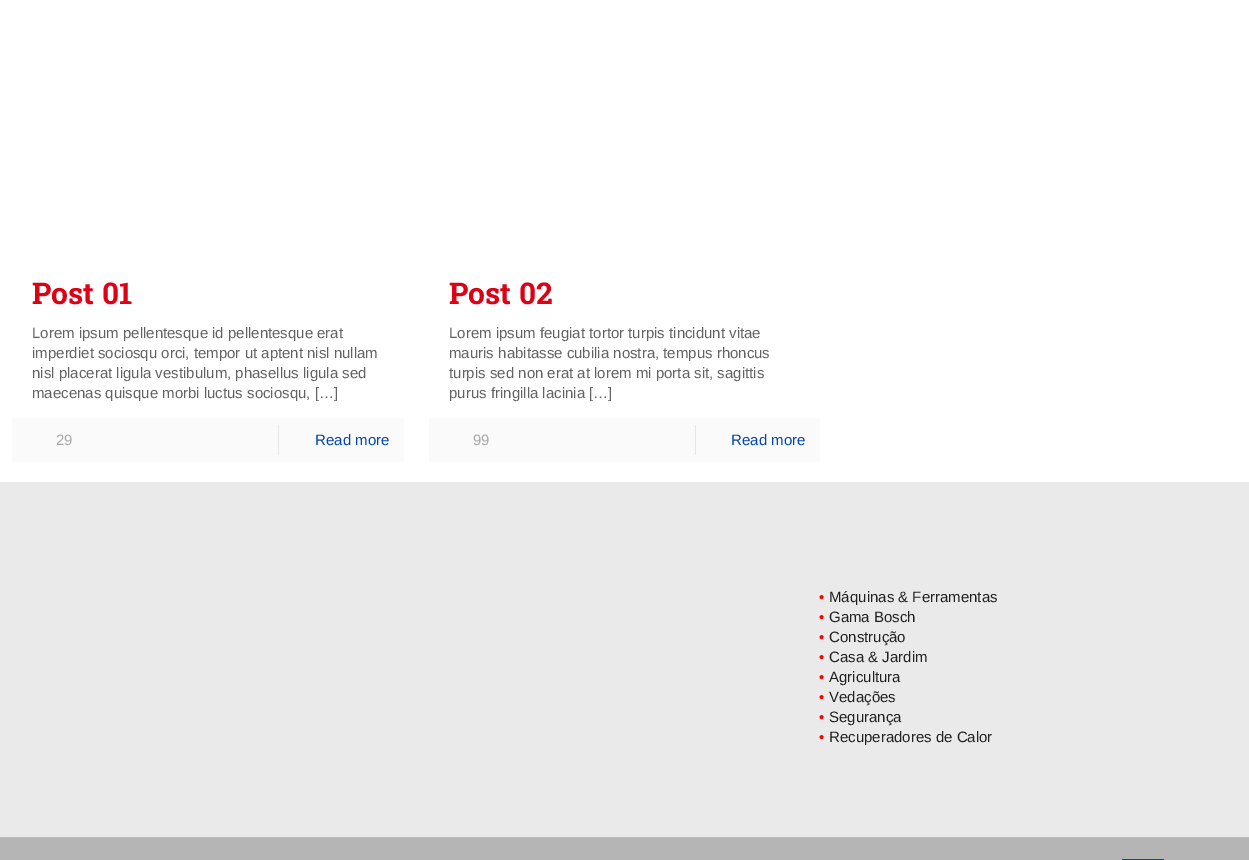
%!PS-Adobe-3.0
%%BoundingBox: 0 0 1249 860
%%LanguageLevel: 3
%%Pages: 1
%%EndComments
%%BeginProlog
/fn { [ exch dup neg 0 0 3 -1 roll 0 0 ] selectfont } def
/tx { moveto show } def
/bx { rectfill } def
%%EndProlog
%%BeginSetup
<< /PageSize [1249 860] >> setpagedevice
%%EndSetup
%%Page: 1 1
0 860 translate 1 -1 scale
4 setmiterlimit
1 setgray
0 0 1249 860 bx
/RobotoSlab-Bold 30 fn
0.871 0 0.082 setrgbcolor
(Post 01) 32 304 tx
/LiberationSans-Regular 15 fn
0.384 setgray
(Lorem ipsum pellentesque id pellentesque erat) 32 338 tx
(imperdiet sociosqu orci, tempor ut aptent nisl nullam) 32 358 tx
(nisl placerat ligula vestibulum, phasellus ligula sed) 32 378 tx
(maecenas quisque morbi luctus sociosqu, […]) 32 398 tx
0.98 setgray
12 418 392 44 bx
0.659 setgray
(29) 56 445 tx
0.902 setgray
278 425 1 30 bx
0 0.275 0.682 setrgbcolor
(Read more) 315 445 tx
/RobotoSlab-Bold 30 fn
0.871 0 0.082 setrgbcolor
(Post 02) 449 304 tx
/LiberationSans-Regular 15 fn
0.384 setgray
(Lorem ipsum feugiat tortor turpis tincidunt vitae) 449 338 tx
(mauris habitasse cubilia nostra, tempus rhoncus) 449 358 tx
(turpis sed non erat at lorem mi porta sit, sagittis) 449 378 tx
(purus fringilla lacinia […]) 449 398 tx
0.98 setgray
429 418 391 44 bx
0.659 setgray
(99) 473 445 tx
0.902 setgray
695 425 1 30 bx
0 0.275 0.682 setrgbcolor
(Read more) 731 445 tx
0.918 setgray
0 482 1249 355 bx
1 0 0 setrgbcolor
(•) 819 602 tx
0.129 setgray
(Máquinas & Ferramentas) 829 602 tx
1 0 0 setrgbcolor
(•) 819 622 tx
0.129 setgray
(Gama Bosch) 829 622 tx
1 0 0 setrgbcolor
(•) 819 642 tx
0.129 setgray
(Construção) 829 642 tx
1 0 0 setrgbcolor
(•) 819 662 tx
0.129 setgray
(Casa & Jardim) 829 662 tx
1 0 0 setrgbcolor
(•) 819 682 tx
0.129 setgray
(Agricultura) 829 682 tx
1 0 0 setrgbcolor
(•) 819 702 tx
0.129 setgray
(Vedações) 829 702 tx
1 0 0 setrgbcolor
(•) 819 722 tx
0.129 setgray
(Segurança) 829 722 tx
1 0 0 setrgbcolor
(•) 819 742 tx
0.129 setgray
(Recuperadores de Calor) 829 742 tx
0.71 setgray
0 838 1249 22 bx
0.737 setgray
0 837 1249 1 bx
0 0.275 0.682 setrgbcolor
1122 859 42 1 bx
showpage
%%EOF
